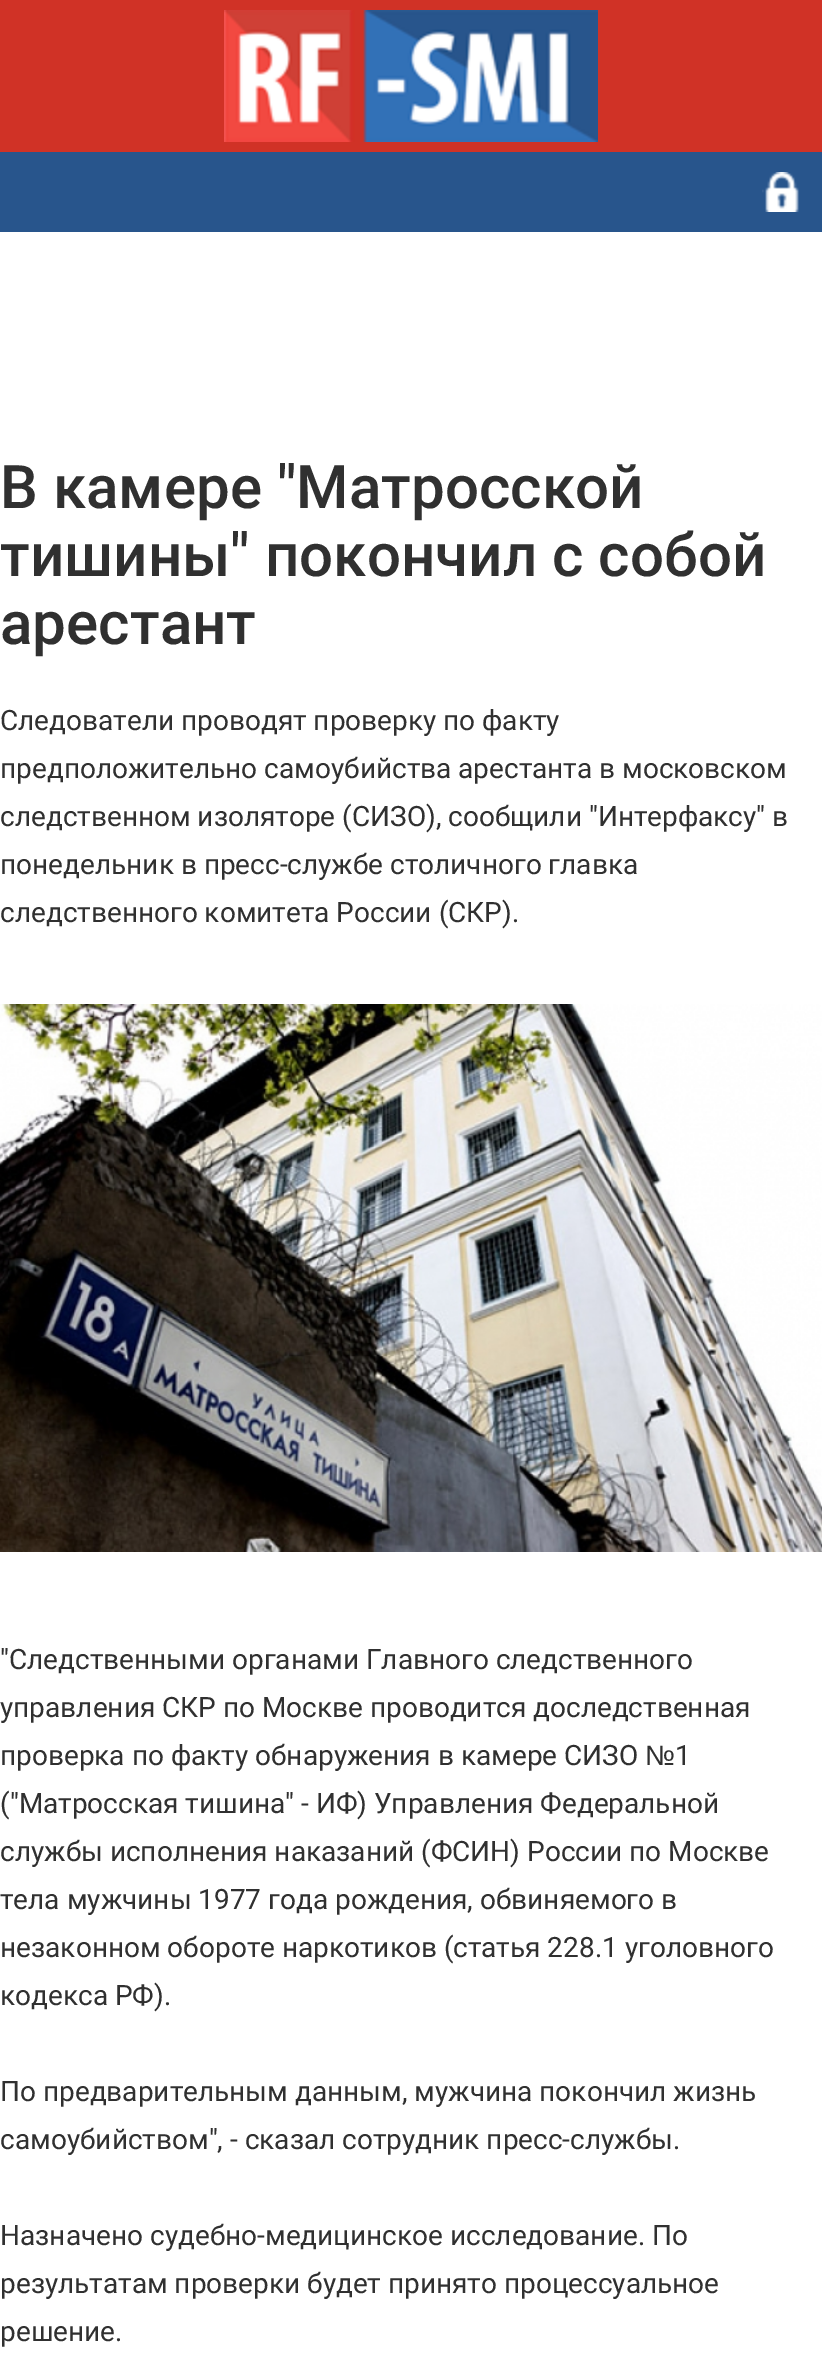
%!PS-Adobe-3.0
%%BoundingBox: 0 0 822 2357
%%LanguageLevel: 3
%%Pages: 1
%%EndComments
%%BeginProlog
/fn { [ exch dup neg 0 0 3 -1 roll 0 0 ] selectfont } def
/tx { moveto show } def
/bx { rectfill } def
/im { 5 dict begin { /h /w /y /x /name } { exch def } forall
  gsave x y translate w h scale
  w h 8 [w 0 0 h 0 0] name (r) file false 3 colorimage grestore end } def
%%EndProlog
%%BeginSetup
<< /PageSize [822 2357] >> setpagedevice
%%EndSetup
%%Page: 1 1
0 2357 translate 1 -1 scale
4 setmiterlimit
1 setgray
0 0 822 2357 bx
0.816 0.196 0.149 setrgbcolor
0 0 822 152 bx
(image0.raw) 224 10 374 132 im
0.157 0.333 0.549 setrgbcolor
0 152 822 80 bx
(image1.raw) 762 172 37 40 im
/Roboto-Medium 60 fn
0.188 setgray
(В камере "Матросской) 0 508 tx
(тишины" покончил с собой) 0 576 tx
(арестант) 0 644 tx
/Roboto-Regular 28 fn
(Следователи проводят проверку по факту) 0 730 tx
(предположительно самоубийства арестанта в московском) 0 778 tx
(следственном изоляторе \(СИЗО\), сообщили "Интерфаксу" в) 0 826 tx
(понедельник в пресс-службе столичного главка) 0 874 tx
(следственного комитета России \(СКР\).) 0 922 tx
(image2.raw) 0 1004 822 548 im
("Следственными органами Главного следственного) 0 1669 tx
(управления СКР по Москве проводится доследственная) 0 1717 tx
(проверка по факту обнаружения в камере СИЗО) 0 1765 tx
/LiberationSans-Regular 28 fn
(№) 645 1765 tx
/Roboto-Regular 28 fn
(1) 675 1765 tx
(\("Матросская тишина" - ИФ\) Управления Федеральной) 0 1813 tx
(службы исполнения наказаний \(ФСИН\) России по Москве) 0 1861 tx
(тела мужчины 1977 года рождения, обвиняемого в) 0 1909 tx
(незаконном обороте наркотиков \(статья 228.1 уголовного) 0 1957 tx
(кодекса РФ\).) 0 2005 tx
(По предварительным данным, мужчина покончил жизнь) 0 2101 tx
(самоубийством", - сказал сотрудник пресс-службы.) 0 2149 tx
(Назначено судебно-медицинское исследование. По) 0 2245 tx
(результатам проверки будет принято процессуальное) 0 2293 tx
(решение.) 0 2341 tx
showpage
%%EOF
